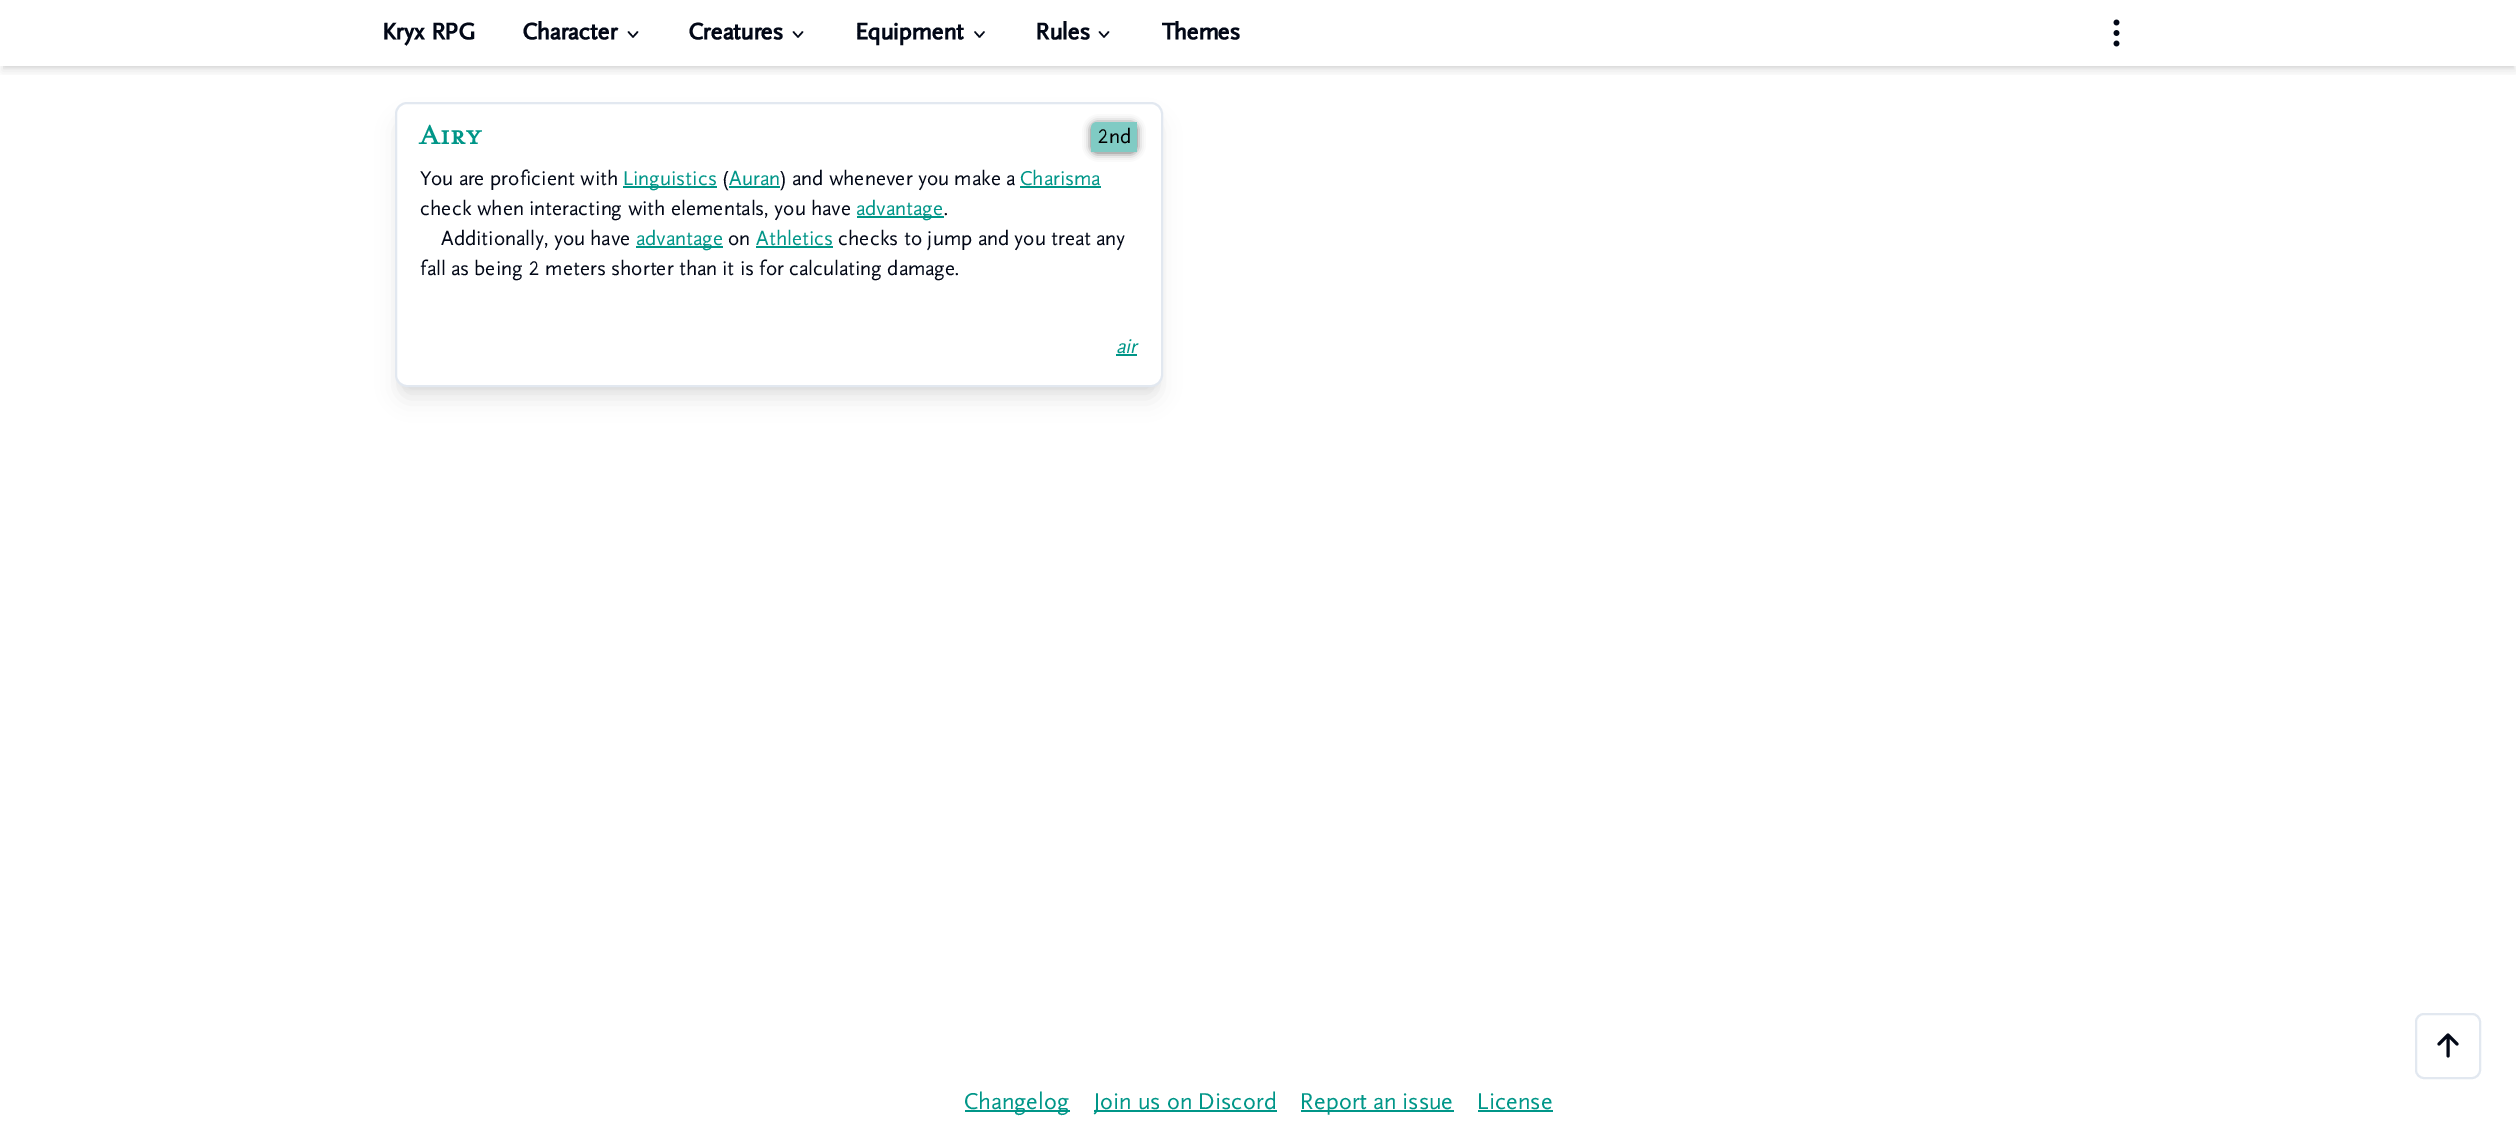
%!PS-Adobe-3.0
%%BoundingBox: 0 0 2516 1132
%%LanguageLevel: 3
%%Pages: 1
%%EndComments
%%BeginProlog
/m { moveto } bind def
/l { lineto } bind def
/c { curveto } bind def
/h { closepath } bind def
/f { fill } bind def
/S { stroke } bind def
/q { gsave } bind def
/Q { grestore } bind def
/w { setlinewidth } bind def
/fn { [ exch dup neg 0 0 3 -1 roll 0 0 ] selectfont } def
/tx { moveto show } def
/bx { rectfill } def
/al { dup .setfillconstantalpha .setstrokeconstantalpha } def
/rr { 5 dict begin { /r /h /w /y /x } { exch def } forall
  x r add y moveto x w add y 2 copy h add r arct x w add y h add x 1 index r arct
  x y h add x y r arct x y 2 copy exch w add exch r arct closepath end } def
/sh { 12 dict begin { /a /b /q /h /w /y /x } { exch def } forall gsave /was 0 def
  9 -2 -9 { dup b mul 4 div /e exch def 1 sub .425 mul 2.718 exch exp 1 add a .99 .min exch div /now exch def
    1 1 now sub 1 was sub div sub al /was now def
    w h .min e 2 mul add 0 gt { x e sub y e sub w e 2 mul add h e 2 mul add
      q e add b .6 mul add w h .min 2 div e add .min 0 .max rr fill } if } for grestore end } def
/im { 5 dict begin { /h /w /y /x /name } { exch def } forall
  gsave x y translate w h scale
  w h 8 [w 0 0 h 0 0] name (r) file false 3 colorimage grestore end } def
%%EndProlog
%%BeginSetup
<< /PageSize [2516 1132] /PageUsesTransparency true >> setpagedevice
%%EndSetup
%%Page: 1 1
0 .pushpdf14devicefilter
0 1132 translate 1 -1 scale
4 setmiterlimit
1 setgray
0 0 2516 1132 bx
q
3 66 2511 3 rectclip
0 setgray
3 6 2511 60 0 3 0.1 sh
Q
q
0 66 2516 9 rectclip
0 setgray
2 8 2514 63 0 4.5 0.1 sh
Q
/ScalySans-Bold 24 fn
0.008 0.031 0.09 setrgbcolor
(Kryx RPG) 383 39 tx
(Character) 523 39 tx
1.5 w
1 setlinecap
1 setlinejoin
628.5 32 m 633 37 l 637.5 32 l S
(Creatures) 689 39 tx
793.5 32 m 798 37 l 802.5 32 l S
(Equipment) 856 39 tx
975 32 m 979.5 37 l 984 32 l S
(Rules) 1036 39 tx
1099.5 32 m 1104 37 l 1108.5 32 l S
(Themes) 1162 39 tx
(image0.raw) 2113 19 7 28 im
0 setgray
401 114 756 273 6 4.5 0.1 sh
399 122 759 276 8 11 0.1 sh
1 setgray
396 103 766 283 11 rr q f Q
0.886 0.91 0.941 setrgbcolor
2 w
0 setlinecap
0 setlinejoin
S
/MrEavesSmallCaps-Bold 30 fn
0 0.588 0.533 setrgbcolor
420 144 m 1 0 (Airy) ashow
0 setgray
1091 123 46 30 6 4 0.6 sh
0.502 0.796 0.769 setrgbcolor
1097 122 m 1137 122 l 1137 152 l 1091 152 l 1091 128 l 1091 124.5 1093.5 122 1097 122 c h f
/ScalySans-Regular 21 fn
0 setgray
(2nd) 1097 143 tx
0.008 0.031 0.09 setrgbcolor
(You are proficient with) 420 185 tx
0 0.588 0.533 setrgbcolor
623 186 94 2 bx
(Linguistics) 623 185 tx
0.008 0.031 0.09 setrgbcolor
(\() 722 185 tx
0 0.588 0.533 setrgbcolor
(Auran) 729 185 tx
729 186 51 2 bx
0.008 0.031 0.09 setrgbcolor
(\) and whenever you make a) 780 185 tx
0 0.588 0.533 setrgbcolor
(Charisma) 1020 185 tx
1020 186 81 2 bx
0.008 0.031 0.09 setrgbcolor
(check when interacting with elementals, you have) 420 215 tx
0 0.588 0.533 setrgbcolor
857 216 87 2 bx
(advantage) 856 215 tx
0.008 0.031 0.09 setrgbcolor
(.) 944 215 tx
(Additionally, you have) 441 245 tx
0 0.588 0.533 setrgbcolor
636 246 87 2 bx
(advantage) 636 245 tx
0.008 0.031 0.09 setrgbcolor
(on) 728 245 tx
0 0.588 0.533 setrgbcolor
(Athletics) 756 245 tx
756 246 77 2 bx
0.008 0.031 0.09 setrgbcolor
(checks to jump and you treat any) 838 245 tx
(fall as being 2 meters shorter than it is for calculating damage.) 420 275 tx
/ScalySans-Italic 21 fn
0 0.588 0.533 setrgbcolor
(air) 1116 353 tx
1116 354 21 2 bx
0.886 0.91 0.941 setrgbcolor
2416 1014 64 64 8 rr S
0.008 0.031 0.09 setrgbcolor
3 w
1 setlinecap
1 setlinejoin
2448 1035 m 2448 1056 l 2457 1044 m 2448 1035 l 2439 1044 m 2448 1035 l S
0 0.588 0.533 setrgbcolor
965 1110 105 2 bx
/ScalySans-Regular 24 fn
(Changelog) 964 1109 tx
1094 1110 183 2 bx
(Join us on Discord) 1094 1109 tx
1301 1110 153 2 bx
(Report an issue) 1300 1109 tx
(License) 1477 1109 tx
1478 1110 75 2 bx
.poppdf14devicefilter showpage
%%EOF
